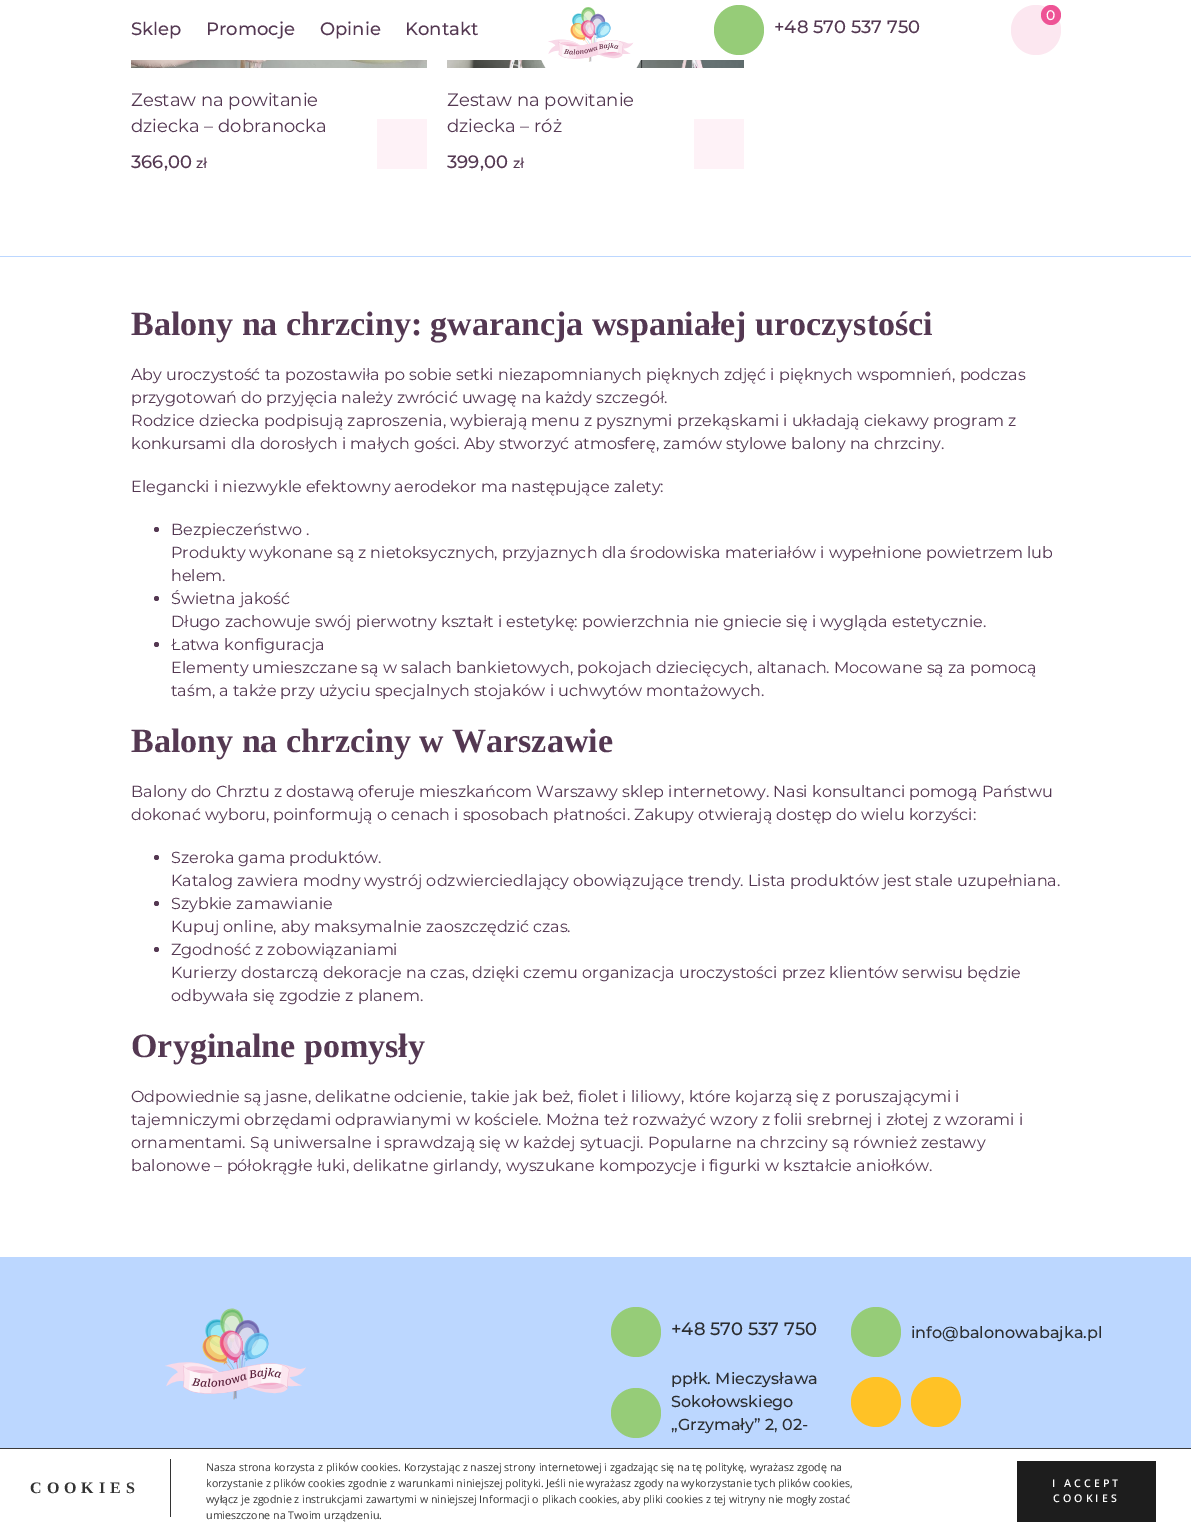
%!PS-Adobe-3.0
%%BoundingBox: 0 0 1191 1533
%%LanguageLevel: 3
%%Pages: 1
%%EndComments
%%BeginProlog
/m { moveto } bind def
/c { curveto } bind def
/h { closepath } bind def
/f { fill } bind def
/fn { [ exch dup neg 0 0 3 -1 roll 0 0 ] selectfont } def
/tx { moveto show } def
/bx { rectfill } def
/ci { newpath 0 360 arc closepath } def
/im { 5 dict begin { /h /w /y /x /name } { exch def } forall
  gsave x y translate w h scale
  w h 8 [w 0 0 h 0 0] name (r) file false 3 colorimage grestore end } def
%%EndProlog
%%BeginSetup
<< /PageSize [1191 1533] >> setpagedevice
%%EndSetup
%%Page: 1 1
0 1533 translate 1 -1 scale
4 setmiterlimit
1 setgray
0 0 1191 1533 bx
/Montserrat-Medium 18 fn
0.329 0.22 0.322 setrgbcolor
(Sklep) 131 35 tx
(Promocje) 206 35 tx
(Opinie) 320 35 tx
(Kontakt) 405 35 tx
(image2.raw) 447 60 297 8 im
/Montserrat-Regular 18 fn
(Zestaw na powitanie) 447 106 tx
1 setgray
591 -26 m 621.5 -26 646 1 646 34 c 646 67 621.5 94 591 94 c 560.5 94 536 67 536 34 c 536 1 560.5 -26 591 -26 c h f
(image0.raw) 548 7 86 55 im
0.988 0.906 0.941 setrgbcolor
1036 30 25 ci f
0.933 0.325 0.584 setrgbcolor
1051 15 10 ci f
/Montserrat-Medium 14 fn
1 setgray
(0) 1046 20 tx
0.588 0.8 0.471 setrgbcolor
739 30 25 ci f
/Montserrat-Medium 18 fn
0.329 0.22 0.322 setrgbcolor
(+48 570 537 750) 774 33 tx
(image1.raw) 131 60 296 8 im
/Montserrat-Regular 18 fn
(Zestaw na powitanie) 131 106 tx
(dziecka – dobranocka) 131 132 tx
/Montserrat-Medium 18 fn
(366,00) 131 168 tx
/Montserrat-Medium 14 fn
(zł) 196 168 tx
0.996 0.949 0.969 setrgbcolor
377 119 50 50 bx
/Montserrat-Regular 18 fn
0.329 0.22 0.322 setrgbcolor
(dziecka – róż) 447 132 tx
/Montserrat-Medium 18 fn
(399,00) 447 168 tx
/Montserrat-Medium 14 fn
(zł) 513 168 tx
0.996 0.949 0.969 setrgbcolor
694 119 50 50 bx
0.737 0.843 1 setrgbcolor
0 256 1191 1 bx
/LiberationSerif-Bold 34 fn
0.329 0.22 0.322 setrgbcolor
(Balony na chrzciny: gwarancja wspaniałej uroczystości) 131 335 tx
/Montserrat-Regular 16 fn
(Aby uroczystość ta pozostawiła po sobie setki niezapomnianych pięknych zdjęć i pięknych wspomnień, podczas) 131 380 tx
(przygotowań do przyjęcia należy zwrócić uwagę na każdy szczegół.) 131 403 tx
(Rodzice dziecka podpisują zaproszenia, wybierają menu z pysznymi przekąskami i układają ciekawy program z) 131 426 tx
(konkursami dla dorosłych i małych gości. Aby stworzyć atmosferę, zamów stylowe balony na chrzciny.) 131 449 tx
(Elegancki i niezwykle efektowny aerodekor ma następujące zalety:) 131 492 tx
156.5 529.5 2.5 ci f
(Bezpieczeństwo .) 171 535 tx
(Produkty wykonane są z nietoksycznych, przyjaznych dla środowiska materiałów i wypełnione powietrzem lub) 171 558 tx
(helem.) 171 581 tx
156.5 598.5 2.5 ci f
(Świetna jakość) 171 604 tx
(Długo zachowuje swój pierwotny kształt i estetykę: powierzchnia nie gniecie się i wygląda estetycznie.) 171 627 tx
156.5 644.5 2.5 ci f
(Łatwa konfiguracja) 171 650 tx
(Elementy umieszczane są w salach bankietowych, pokojach dziecięcych, altanach. Mocowane są za pomocą) 171 673 tx
(taśm, a także przy użyciu specjalnych stojaków i uchwytów montażowych.) 171 696 tx
/LiberationSerif-Bold 34 fn
(Balony na chrzciny w Warszawie) 131 752 tx
/Montserrat-Regular 16 fn
(Balony do Chrztu z dostawą oferuje mieszkańcom Warszawy sklep internetowy. Nasi konsultanci pomogą Państwu) 131 797 tx
(dokonać wyboru, poinformują o cenach i sposobach płatności. Zakupy otwierają dostęp do wielu korzyści:) 131 820 tx
156.5 857.5 2.5 ci f
(Szeroka gama produktów.) 171 863 tx
(Katalog zawiera modny wystrój odzwierciedlający obowiązujące trendy. Lista produktów jest stale uzupełniana.) 171 886 tx
156.5 903.5 2.5 ci f
(Szybkie zamawianie) 171 909 tx
(Kupuj online, aby maksymalnie zaoszczędzić czas.) 171 932 tx
156.5 949.5 2.5 ci f
(Zgodność z zobowiązaniami) 171 955 tx
(Kurierzy dostarczą dekoracje na czas, dzięki czemu organizacja uroczystości przez klientów serwisu będzie) 171 978 tx
(odbywała się zgodzie z planem.) 171 1001 tx
/LiberationSerif-Bold 34 fn
(Oryginalne pomysły) 131 1057 tx
/Montserrat-Regular 16 fn
(Odpowiednie są jasne, delikatne odcienie, takie jak beż, fiolet i liliowy, które kojarzą się z poruszającymi i) 131 1102 tx
(tajemniczymi obrzędami odprawianymi w kościele. Można też rozważyć wzory z folii srebrnej i złotej z wzorami i) 131 1125 tx
(ornamentami. Są uniwersalne i sprawdzają się w każdej sytuacji. Popularne na chrzciny są również zestawy) 131 1148 tx
(balonowe – półokrągłe łuki, delikatne girlandy, wyszukane kompozycje i figurki w kształcie aniołków.) 131 1171 tx
0.737 0.843 1 setrgbcolor
0 1257 1191 191 bx
(image3.raw) 165 1308 141 92 im
0.588 0.8 0.471 setrgbcolor
636 1332 25 ci f
/Montserrat-Medium 18 fn
0.169 0.176 0.188 setrgbcolor
(+48 570 537 750) 671 1335 tx
0.588 0.8 0.471 setrgbcolor
636 1413 25 ci f
/Montserrat-Medium 16 fn
0.169 0.176 0.188 setrgbcolor
(ppłk. Mieczysława) 671 1384 tx
(Sokołowskiego) 671 1407 tx
(„Grzymały” 2, 02-) 671 1430 tx
0.588 0.8 0.471 setrgbcolor
876 1332 25 ci f
0.169 0.176 0.188 setrgbcolor
(info@balonowabajka.pl) 911 1338 tx
1 0.761 0.149 setrgbcolor
876 1402 25 ci f
936 1402 25 ci f
0.231 0.224 0.224 setrgbcolor
0 1448 1191 1 bx
0.2 setgray
170 1459 1 58 bx
/LiberationSerif-Bold 16 fn
30 1493 m 5 0 (COOKIES) ashow
/OpenSans-Regular 10.67 fn
(Nasza strona korzysta z plików cookies. Korzystając z naszej strony internetowej i zgadzając się na tę politykę, wyrażasz zgodę na) 206 1471 tx
(korzystanie z plików cookies zgodnie z warunkami niniejszej polityki. Jeśli nie wyrażasz zgody na wykorzystanie tych plików cookies,) 206 1487 tx
(wyłącz je zgodnie z instrukcjami zawartymi w niniejszej Informacji o plikach cookies, aby pliki cookies z tej witryny nie mogły zostać) 206 1503 tx
(umieszczone na Twoim urządzeniu.) 206 1519 tx
0.114 setgray
1017 1461 139 61 bx
/OpenSans-SemiBold 10.67 fn
1 setgray
1052 1487 m 3 0 (I ACCEPT) ashow
1053 1502 m 3 0 (COOKIES) ashow
showpage
%%EOF
